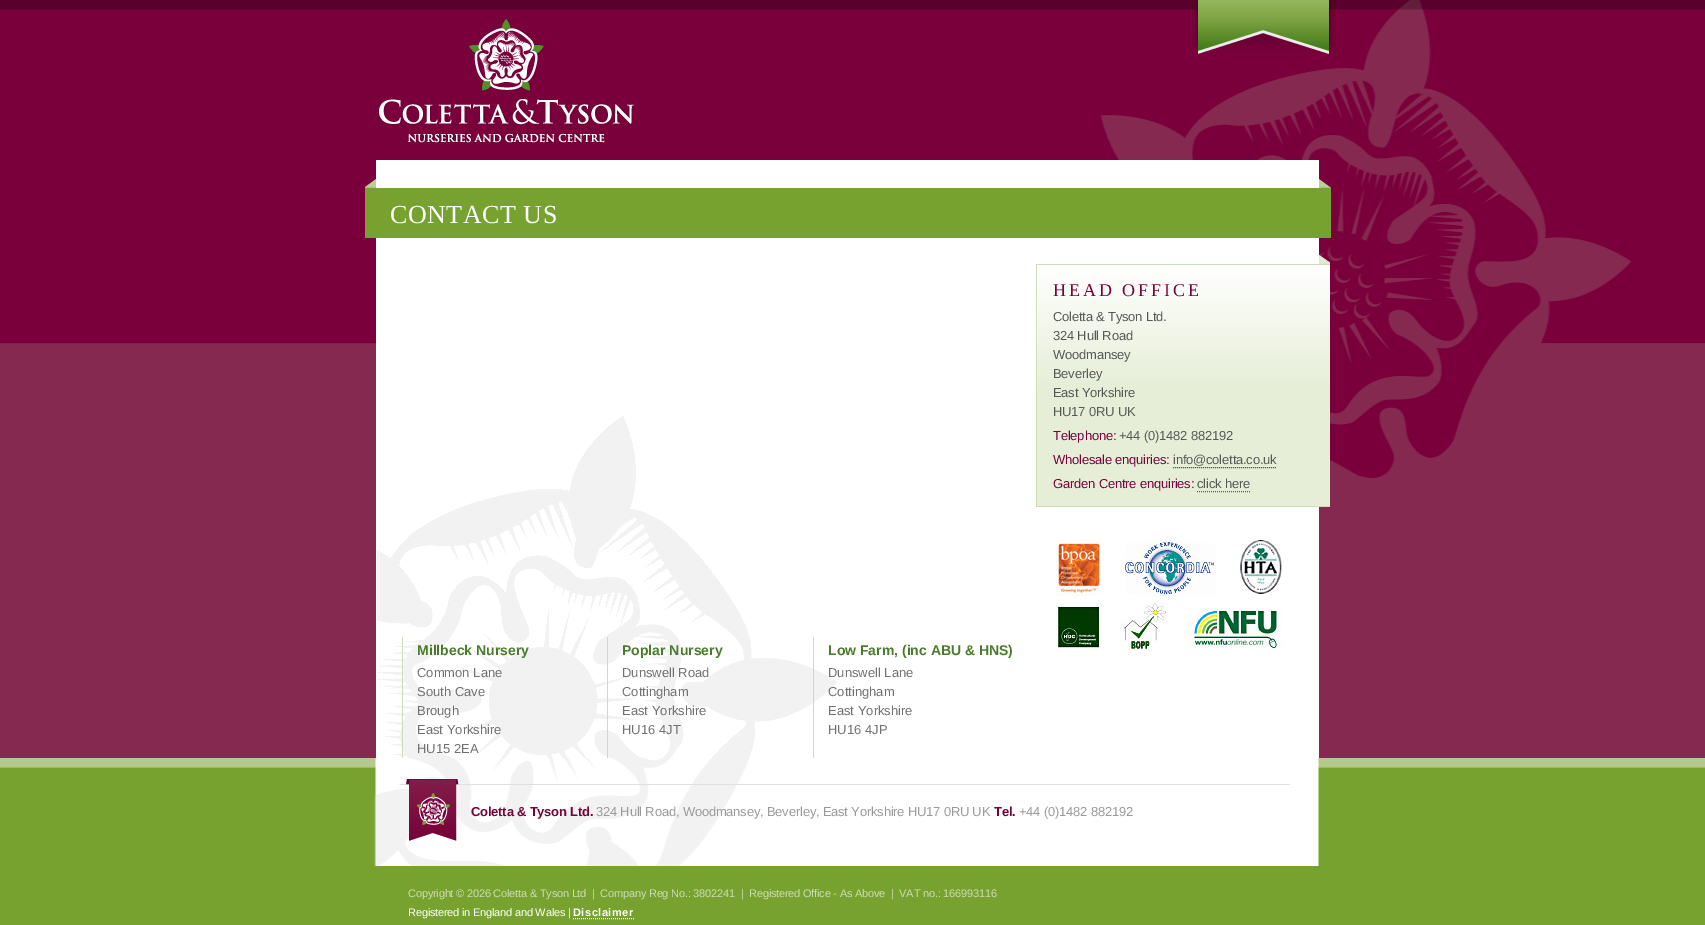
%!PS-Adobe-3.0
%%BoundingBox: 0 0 1705 925
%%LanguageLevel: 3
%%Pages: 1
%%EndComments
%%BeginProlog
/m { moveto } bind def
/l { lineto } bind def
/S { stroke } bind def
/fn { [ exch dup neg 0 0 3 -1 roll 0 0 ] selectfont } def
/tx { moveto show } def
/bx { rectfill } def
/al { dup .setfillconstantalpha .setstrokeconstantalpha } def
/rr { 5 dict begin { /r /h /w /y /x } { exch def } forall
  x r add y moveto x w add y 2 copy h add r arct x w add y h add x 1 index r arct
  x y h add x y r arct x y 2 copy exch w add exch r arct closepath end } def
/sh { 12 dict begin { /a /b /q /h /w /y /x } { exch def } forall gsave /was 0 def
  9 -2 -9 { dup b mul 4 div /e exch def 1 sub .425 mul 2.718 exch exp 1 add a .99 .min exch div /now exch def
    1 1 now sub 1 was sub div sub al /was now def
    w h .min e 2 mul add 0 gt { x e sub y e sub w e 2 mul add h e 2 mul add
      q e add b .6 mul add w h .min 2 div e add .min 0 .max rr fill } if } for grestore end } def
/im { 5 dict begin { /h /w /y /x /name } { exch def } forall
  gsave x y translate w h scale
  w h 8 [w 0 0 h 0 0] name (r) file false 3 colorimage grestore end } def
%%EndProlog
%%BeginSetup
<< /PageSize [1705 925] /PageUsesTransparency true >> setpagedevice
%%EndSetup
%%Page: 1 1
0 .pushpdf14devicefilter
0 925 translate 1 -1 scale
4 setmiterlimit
1 setgray
0 0 1705 925 bx
(image0.raw) 0 0 1705 758 im
(image1.raw) 378 19 256 124 im
0.176 0 0.11 setrgbcolor
1198 -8 131 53 0 2.5 1 sh
(image2.raw) 1198 0 131 62 im
1 setgray
376 160 943 86 bx
(image3.raw) 365 179 11 9 im
(image4.raw) 1319 179 12 9 im
0.471 0.635 0.184 setrgbcolor
365 188 966 50 bx
/LiberationSerif-Regular 26 fn
1 setgray
390 223 m 0.5 0 (CONTACT US) ashow
(image5.raw) 376 246 943 512 im
(image6.raw) 1036 255 294 251 im
0.812 0.867 0.714 setrgbcolor
1036 506 294 1 bx
/LiberationSerif-Regular 18 fn
0.478 0 0.235 setrgbcolor
1053 296 m 3 0 (HEAD OFFICE) ashow
/LiberationSans-Regular 13 fn
0.345 0.345 0.341 setrgbcolor
1053 321 m -0.2 0 (Coletta & Tyson Ltd.) ashow
1053 340 m -0.2 0 (324 Hull Road) ashow
1053 359 m -0.2 0 (Woodmansey) ashow
1053 378 m -0.2 0 (Beverley) ashow
1053 397 m -0.2 0 (East Yorkshire) ashow
1053 416 m -0.2 0 (HU17 0RU UK) ashow
0.478 0 0.235 setrgbcolor
1053 440 m -0.2 0 (Telephone:) ashow
0.345 0.345 0.341 setrgbcolor
1119 440 m -0.2 0 (+44 \(0\)1482 882192) ashow
0.478 0 0.235 setrgbcolor
1053 464 m -0.2 0 (Wholesale enquiries:) ashow
0.345 0.345 0.341 setrgbcolor
1173 464 m -0.2 0 (info@coletta.co.uk) ashow
[1 1] 0 setdash
1173 467.5 m 1276 467.5 l S
0.478 0 0.235 setrgbcolor
1053 488 m -0.2 0 (Garden Centre enquiries:) ashow
0.345 0.345 0.341 setrgbcolor
1197 488 m -0.2 0 (click here) ashow
1197 491.5 m 1250 491.5 l S
(image7.raw) 1057 540 44 56 im
(image8.raw) 1122 540 94 56 im
(image9.raw) 1240 540 42 56 im
(image10.raw) 1057 603 42 46 im
(image11.raw) 1120 603 46 48 im
(image12.raw) 1188 608 95 40 im
0.812 0.867 0.714 setrgbcolor
402 637 1 121 bx
/LiberationSans-Bold 14 fn
0.29 0.482 0.157 setrgbcolor
(Millbeck Nursery) 417 655 tx
/LiberationSans-Regular 13 fn
0.443 setgray
(Common Lane) 417 677 tx
(South Cave) 417 696 tx
(Brough) 417 715 tx
(East Yorkshire) 417 734 tx
(HU15 2EA) 417 753 tx
0.812 0.867 0.714 setrgbcolor
607 637 1 121 bx
/LiberationSans-Bold 14 fn
0.29 0.482 0.157 setrgbcolor
(Poplar Nursery) 622 655 tx
/LiberationSans-Regular 13 fn
0.443 setgray
(Dunswell Road) 622 677 tx
(Cottingham) 622 696 tx
(East Yorkshire) 622 715 tx
(HU16 4JT) 622 734 tx
0.812 0.867 0.714 setrgbcolor
813 637 1 121 bx
/LiberationSans-Bold 14 fn
0.29 0.482 0.157 setrgbcolor
(Low Farm, \(inc ABU & HNS\)) 828 655 tx
/LiberationSans-Regular 13 fn
0.443 setgray
(Dunswell Lane) 828 677 tx
(Cottingham) 828 696 tx
(East Yorkshire) 828 715 tx
(HU16 4JP) 828 734 tx
0.471 0.635 0.184 setrgbcolor
0 866 1705 59 bx
(image13.raw) 0 758 1705 108 im
(image14.raw) 399 779 891 62 im
/LiberationSans-Bold 13 fn
0.478 0 0.235 setrgbcolor
471 816 m -0.2 0 (Coletta & Tyson Ltd.) ashow
/LiberationSans-Regular 13 fn
0.604 setgray
596 816 m -0.2 0 (324 Hull Road, Woodmansey, Beverley, East Yorkshire HU17 0RU UK) ashow
/LiberationSans-Bold 13 fn
0.478 0 0.235 setrgbcolor
994 816 m -0.2 0 (Tel.) ashow
/LiberationSans-Regular 13 fn
0.604 setgray
1019 816 m -0.2 0 (+44 \(0\)1482 882192) ashow
/LiberationSans-Regular 11 fn
0.808 0.863 0.706 setrgbcolor
408 897 m -0.2 0 (Copyright © 2026 Coletta & Tyson Ltd  |  Company Reg No.: 3802241  |  Registered Office - As Above  |  VAT no.: 166993116) ashow
1 setgray
408 916 m -0.2 0 (Registered in England and Wales |) ashow
/LiberationSans-Bold 11 fn
573 916 m 0.5 0 (Disclaimer) ashow
573 918.5 m 634 918.5 l S
.poppdf14devicefilter showpage
%%EOF
